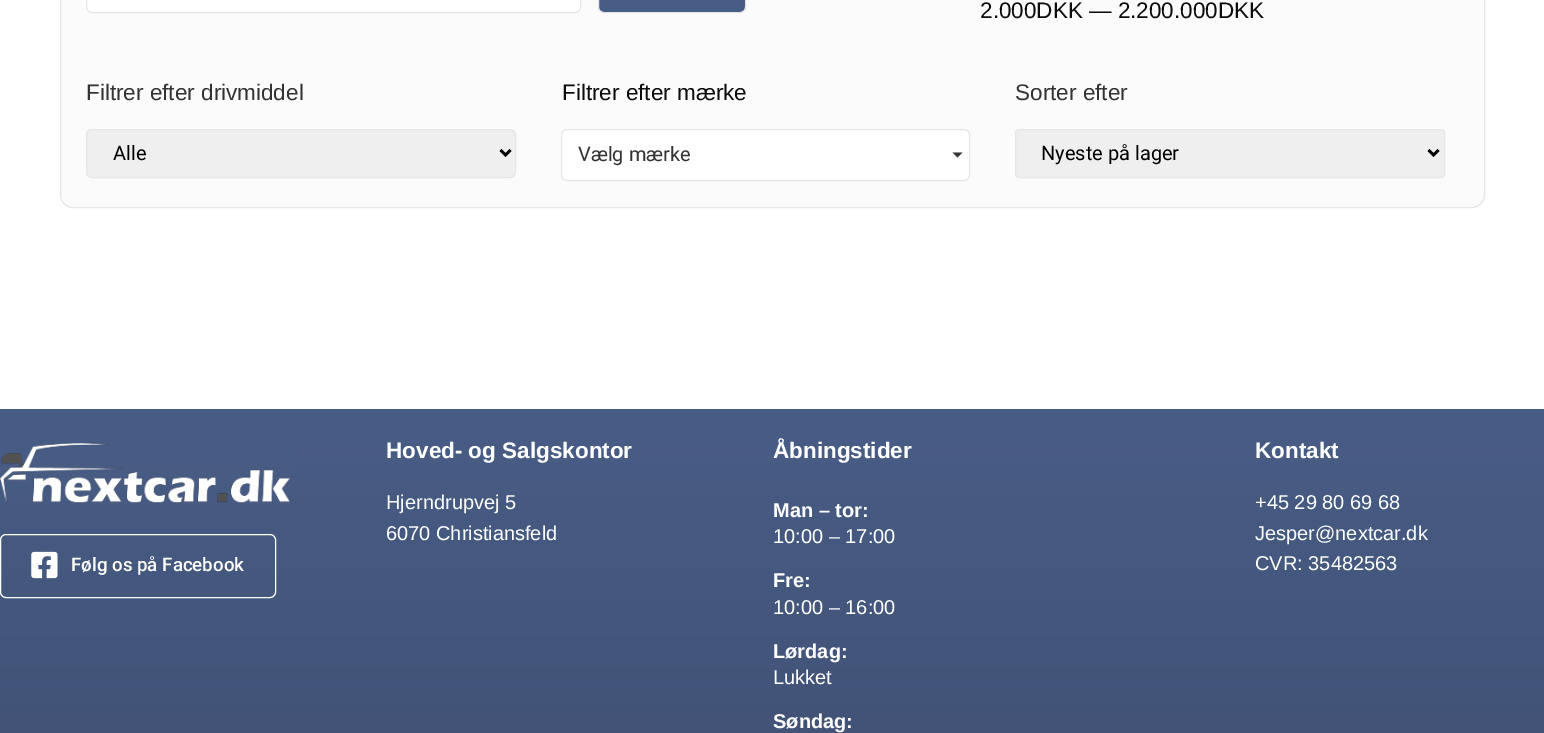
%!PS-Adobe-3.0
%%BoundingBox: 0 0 1544 733
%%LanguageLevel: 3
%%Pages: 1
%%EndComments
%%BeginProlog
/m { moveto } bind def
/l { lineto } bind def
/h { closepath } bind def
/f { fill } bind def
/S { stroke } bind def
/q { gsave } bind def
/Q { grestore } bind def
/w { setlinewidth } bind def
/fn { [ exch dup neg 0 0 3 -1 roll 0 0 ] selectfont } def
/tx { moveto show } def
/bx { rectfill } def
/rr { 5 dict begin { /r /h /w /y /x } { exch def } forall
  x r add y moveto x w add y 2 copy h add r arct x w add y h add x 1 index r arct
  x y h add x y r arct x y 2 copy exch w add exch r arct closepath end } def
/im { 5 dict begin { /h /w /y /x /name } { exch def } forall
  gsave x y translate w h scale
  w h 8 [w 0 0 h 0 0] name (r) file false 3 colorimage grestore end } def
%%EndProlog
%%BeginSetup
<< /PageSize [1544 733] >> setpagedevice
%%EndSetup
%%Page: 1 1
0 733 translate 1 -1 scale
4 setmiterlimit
1 setgray
0 0 1544 733 bx
0.984 setgray
60.5 -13.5 1424 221 12.5 rr q f Q
0.902 setgray
S
1 setgray
86.5 -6.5 494 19 5.5 rr q f Q
0.902 setgray
S
0.282 0.365 0.525 setrgbcolor
598.5 -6.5 147 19 5.5 rr q f Q
0.902 setgray
S
/LiberationSans-Regular 22.5 fn
0.047 setgray
(2.000DKK — 2.200.000DKK) 980 18 tx
0.2 setgray
(Filtrer efter drivmiddel) 86 100 tx
0.937 setgray
86.5 129.5 429 48 5.5 rr q f Q
0.902 setgray
S
0 setgray
2.5 w
500.5 150 m 505.5 155 l 510.5 150 l S
/Roboto-Regular 20 fn
(Alle) 113 160 tx
/LiberationSans-Regular 22.5 fn
0.047 setgray
(Filtrer efter mærke) 562 100 tx
1 setgray
561.5 129.5 408 51 5.5 rr q f Q
0.902 setgray
1 w
S
/Roboto-Regular 20 fn
0.2 setgray
(Vælg mærke) 578 161 tx
952.5 152.5 m 962.5 152.5 l 957.5 157.5 l h f
/LiberationSans-Regular 22.5 fn
(Sorter efter) 1015 100 tx
0.937 setgray
1015.5 129.5 429 48 3.5 rr q f Q
0.902 setgray
S
0 setgray
2.5 w
1428.5 150 m 1433.5 155 l 1438.5 150 l S
/Roboto-Regular 20 fn
(Nyeste på lager) 1041 160 tx
q 0 409 m 1544 409 l 1544 733 l 0 733 l h clip newpath
<< /ShadingType 2 /ColorSpace /DeviceRGB /Coords [773 409 773 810] /Extend [true true] /Function << /FunctionType 2 /Domain [0 1] /C0 [0.282 0.365 0.525] /C1 [0.251 0.318 0.451] /N 1 >> >> shfill Q
(image0.raw) 0 443 290 61 im
1 setgray
1 w
0.5 534.5 275 63 5.5 rr S
(image1.raw) 31 551 27 28 im
/Roboto-Medium 18.75 fn
(Følg os på Facebook) 71 571 tx
/LiberationSans-Bold 22.5 fn
(Hoved- og Salgskontor) 386 458 tx
/LiberationSans-Regular 20 fn
(Hjerndrupvej 5) 386 509 tx
(6070 Christiansfeld) 386 540 tx
/LiberationSans-Bold 22.5 fn
(Åbningstider) 773 458 tx
/LiberationSans-Bold 20 fn
(Man – tor:) 773 517 tx
/LiberationSans-Regular 20 fn
(10:00 – 17:00) 773 543 tx
/LiberationSans-Bold 20 fn
(Fre:) 773 587 tx
/LiberationSans-Regular 20 fn
(10:00 – 16:00) 773 614 tx
/LiberationSans-Bold 20 fn
(Lørdag:) 773 658 tx
/LiberationSans-Regular 20 fn
(Lukket) 773 684 tx
/LiberationSans-Bold 20 fn
(Søndag:) 773 728 tx
/LiberationSans-Bold 22.5 fn
(Kontakt) 1255 458 tx
/LiberationSans-Regular 20 fn
(+45 29 80 69 68) 1255 509 tx
(Jesper@nextcar.dk) 1255 540 tx
(CVR: 35482563) 1255 570 tx
showpage
%%EOF
